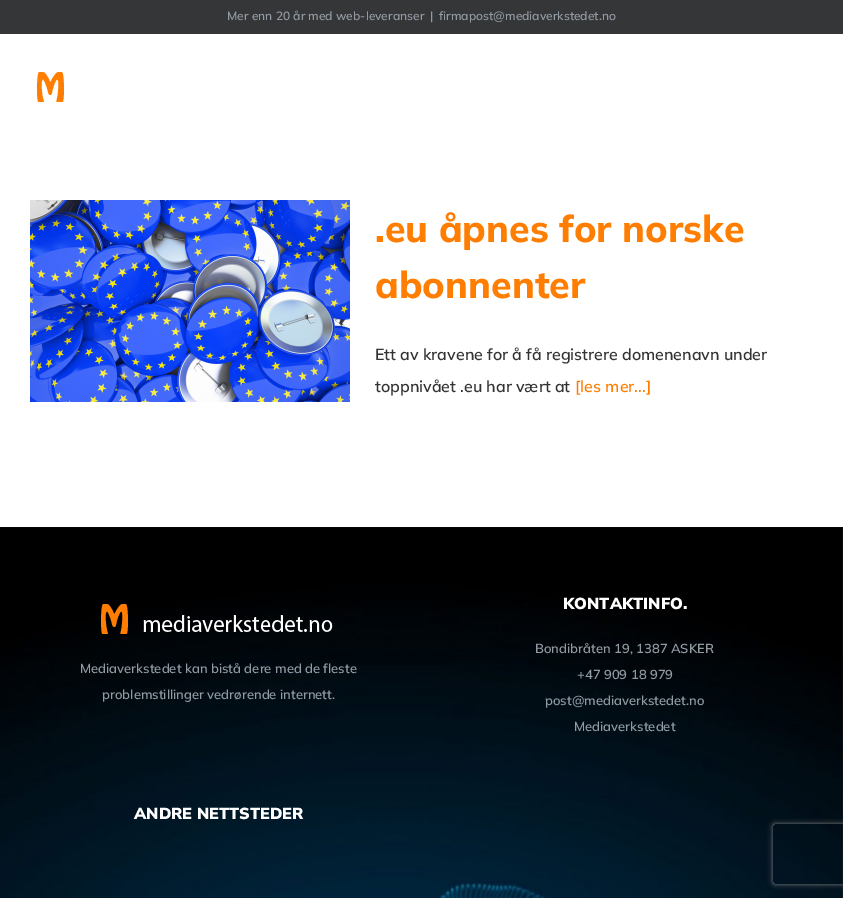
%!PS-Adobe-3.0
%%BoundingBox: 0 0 843 898
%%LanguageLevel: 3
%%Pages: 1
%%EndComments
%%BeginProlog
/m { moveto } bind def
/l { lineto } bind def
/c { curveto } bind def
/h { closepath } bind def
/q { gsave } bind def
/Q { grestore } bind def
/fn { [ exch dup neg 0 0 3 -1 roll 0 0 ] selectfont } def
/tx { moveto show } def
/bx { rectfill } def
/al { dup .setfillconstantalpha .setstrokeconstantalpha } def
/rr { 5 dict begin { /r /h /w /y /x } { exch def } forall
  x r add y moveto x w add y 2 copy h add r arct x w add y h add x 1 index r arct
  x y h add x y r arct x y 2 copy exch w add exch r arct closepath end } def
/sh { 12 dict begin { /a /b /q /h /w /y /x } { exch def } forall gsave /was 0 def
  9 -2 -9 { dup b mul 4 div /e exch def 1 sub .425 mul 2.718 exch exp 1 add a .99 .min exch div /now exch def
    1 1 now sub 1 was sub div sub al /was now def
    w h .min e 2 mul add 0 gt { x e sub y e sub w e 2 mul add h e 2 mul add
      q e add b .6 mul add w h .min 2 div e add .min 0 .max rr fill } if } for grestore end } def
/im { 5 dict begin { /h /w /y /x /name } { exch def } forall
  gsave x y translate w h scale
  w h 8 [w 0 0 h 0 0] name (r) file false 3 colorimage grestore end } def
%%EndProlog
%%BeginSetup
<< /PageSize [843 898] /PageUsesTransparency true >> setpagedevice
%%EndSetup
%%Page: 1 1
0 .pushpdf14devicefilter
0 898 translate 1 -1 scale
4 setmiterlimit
1 setgray
0 0 843 898 bx
0.208 0.212 0.216 setrgbcolor
0 0 843 34 bx
/Mulish-SemiBold 12 fn
0.573 0.604 0.639 setrgbcolor
(Mer enn 20 år med web-leveranser) 227 20 tx
(|) 430 20 tx
(firmapost@mediaverkstedet.no) 439 20 tx
(image0.raw) 37 72 27 30 im
(image1.raw) 30 200 320 202 im
/Mulish-ExtraBold 37.5 fn
1 0.494 0.008 setrgbcolor
(.eu åpnes for norske) 375 242 tx
(abonnenter) 375 298 tx
/Mulish-SemiBold 16 fn
0.2 setgray
(Ett av kravene for å få registrere domenenavn under) 375 360 tx
(toppnivået .eu har vært at) 375 392 tx
1 0.494 0.008 setrgbcolor
([les mer...]) 575 392 tx
(image2.raw) 0 527 843 371 im
(image3.raw) 101 604 232 30 im
/Mulish-SemiBold 13 fn
0.573 0.604 0.639 setrgbcolor
(Mediaverkstedet kan bistå dere med de fleste) 80 673 tx
(problemstillinger vedrørende internett.) 102 699 tx
/Mulish-Black 16 fn
1 setgray
(KONTAKTINFO.) 563 609 tx
/Mulish-SemiBold 13 fn
0.573 0.604 0.639 setrgbcolor
(Bondibråten 19, 1387 ASKER) 535 653 tx
(+47 909 18 979) 577 679 tx
(post@mediaverkstedet.no) 545 705 tx
(Mediaverkstedet) 574 731 tx
/Mulish-Black 16 fn
1 setgray
(ANDRE NETTSTEDER) 134 819 tx
q
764 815 m 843 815 l 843 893 l 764 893 l h 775 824 m 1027 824 l 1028 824 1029 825 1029 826 c 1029 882 l 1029 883 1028 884 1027 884 c 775 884 l 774 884 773 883 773 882 c 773 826 l 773 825 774 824 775 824 c h eoclip newpath
0.502 setgray
773 824 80 60 2 2.5 1 sh
Q
.poppdf14devicefilter showpage
%%EOF
